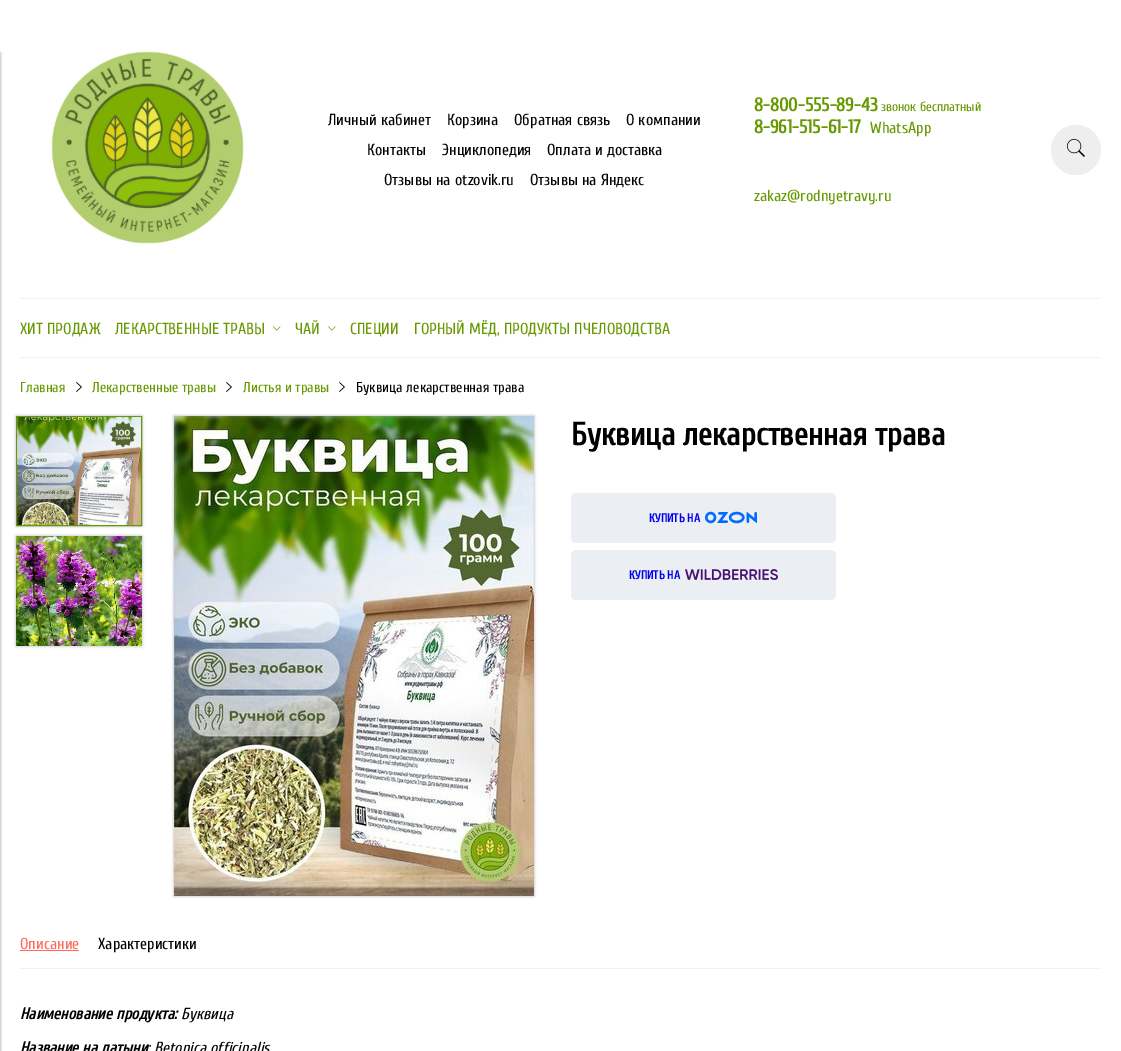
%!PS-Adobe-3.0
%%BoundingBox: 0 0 1121 1051
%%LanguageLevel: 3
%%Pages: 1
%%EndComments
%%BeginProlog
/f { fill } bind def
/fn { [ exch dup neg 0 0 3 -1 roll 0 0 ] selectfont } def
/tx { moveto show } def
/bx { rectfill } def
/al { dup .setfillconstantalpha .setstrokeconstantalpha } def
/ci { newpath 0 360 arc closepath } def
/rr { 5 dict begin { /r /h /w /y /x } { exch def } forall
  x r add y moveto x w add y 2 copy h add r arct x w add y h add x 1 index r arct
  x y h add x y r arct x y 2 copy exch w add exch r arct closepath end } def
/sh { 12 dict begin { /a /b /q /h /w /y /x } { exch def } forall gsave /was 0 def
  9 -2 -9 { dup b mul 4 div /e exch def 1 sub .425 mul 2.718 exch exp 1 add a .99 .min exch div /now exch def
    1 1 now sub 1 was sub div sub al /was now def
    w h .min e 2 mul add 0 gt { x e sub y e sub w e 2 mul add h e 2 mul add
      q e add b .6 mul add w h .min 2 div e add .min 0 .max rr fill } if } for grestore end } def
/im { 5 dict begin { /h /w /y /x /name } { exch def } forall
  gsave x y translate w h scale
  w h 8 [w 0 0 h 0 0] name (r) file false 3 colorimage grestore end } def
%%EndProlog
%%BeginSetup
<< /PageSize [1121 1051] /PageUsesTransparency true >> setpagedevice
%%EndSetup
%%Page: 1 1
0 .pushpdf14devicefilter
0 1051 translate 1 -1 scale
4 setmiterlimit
1 setgray
0 0 1121 1051 bx
0 setgray
-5 53 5 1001 0 1.5 0.4 sh
(image0.raw) 51 51 193 193 im
/Cuprum-Regular 16 fn
(Личный кабинет) 328 125 tx
(Корзина) 447 125 tx
(Обратная связь) 514 125 tx
(О компании) 626 125 tx
(Контакты) 367 155 tx
(Энциклопедия) 442 155 tx
(Оплата и доставка) 547 155 tx
(Отзывы на otzovik.ru) 384 185 tx
(Отзывы на Яндекс) 530 185 tx
/Cuprum-Bold 18.75 fn
0.4 0.6 0 setrgbcolor
(8-800-555-89-43) 754 111 tx
/Cuprum-Regular 13.25 fn
(звонок бесплатный) 881 111 tx
/Cuprum-Bold 18.75 fn
(8-961-515-61-17) 754 133 tx
/Cuprum-Regular 16 fn
(WhatsApp) 870 133 tx
(zakaz@rodnyetravy.ru) 754 201 tx
0.933 setgray
1076 150 25 ci f
(image1.raw) 1067 139 18 18 im
0.949 setgray
20 298 1081 1 bx
0.4 0.6 0 setrgbcolor
(ХИТ ПРОДАЖ) 20 334 tx
(ЛЕКАРСТВЕННЫЕ ТРАВЫ) 115 334 tx
(image2.raw) 273 326 8 5 im
(ЧАЙ) 295 334 tx
(image2.raw) 328 326 8 5 im
(СПЕЦИИ) 350 334 tx
(ГОРНЫЙ МЁД, ПРОДУКТЫ ПЧЕЛОВОДСТВА) 414 334 tx
0.949 setgray
20 357 1081 1 bx
/Cuprum-Regular 14.4 fn
0.4 0.6 0 setrgbcolor
(Главная) 20 392 tx
(image3.raw) 76 382 6 10 im
(Лекарственные травы) 92 392 tx
(image3.raw) 226 382 6 10 im
(Листья и травы) 243 392 tx
(image3.raw) 339 382 6 10 im
0 setgray
(Буквица лекарственная трава) 356 392 tx
16 416 126 110 0 1.5 0.3 sh
0.4 0.6 0 setrgbcolor
16.5 416.5 125 109 rectstroke
(image4.raw) 17 417 124 108 im
0 setgray
16 536 126 110 0 1.5 0.3 sh
(image5.raw) 16 536 126 110 im
174 416 360 480 0 1.5 0.3 sh
(image6.raw) 174 416 360 480 im
/Cuprum-Bold 32 fn
(Буквица лекарственная трава) 571 445 tx
0.922 0.937 0.957 setrgbcolor
571 493 265 50 5 rr f
/Cuprum-Bold 12 fn
0 0 0.933 setrgbcolor
(КУПИТЬ НА) 649 522 tx
(image7.raw) 705 511 52 13 im
0.922 0.937 0.957 setrgbcolor
571 550 265 50 5 rr f
0 0 0.933 setrgbcolor
(КУПИТЬ НА) 629 579 tx
(image8.raw) 685 569 93 11 im
0.949 setgray
20 968 1081 1 bx
/Cuprum-Regular 16 fn
1 0.416 0.349 setrgbcolor
(Описание) 20 949 tx
20 950 59 1 bx
0 setgray
(Характеристики) 98 949 tx
/Cuprum-BoldItalic 16 fn
(Наименование продукта:) 20 1019 tx
/Cuprum-Italic 16 fn
(Буквица) 181 1019 tx
/Cuprum-BoldItalic 16 fn
(Название на латыни) 20 1053 tx
/Cuprum-Italic 16 fn
(: Betonica officinalis) 147 1053 tx
.poppdf14devicefilter showpage
%%EOF
